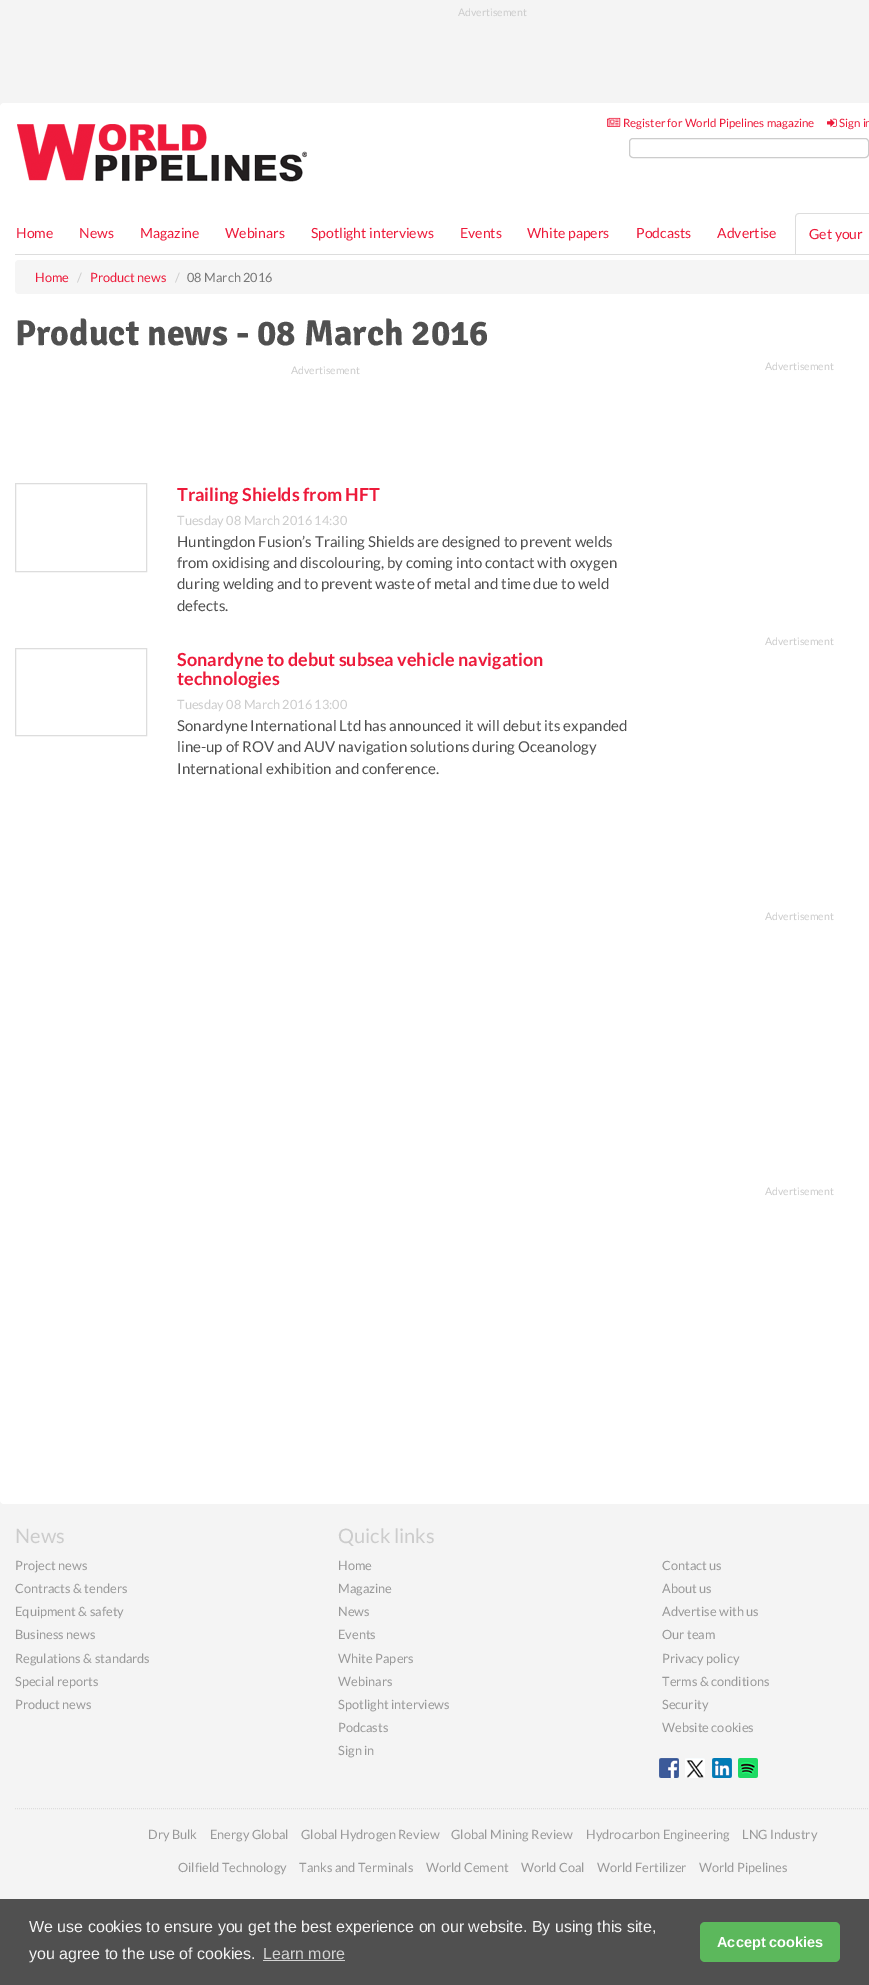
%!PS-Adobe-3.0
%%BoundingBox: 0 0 869 1985
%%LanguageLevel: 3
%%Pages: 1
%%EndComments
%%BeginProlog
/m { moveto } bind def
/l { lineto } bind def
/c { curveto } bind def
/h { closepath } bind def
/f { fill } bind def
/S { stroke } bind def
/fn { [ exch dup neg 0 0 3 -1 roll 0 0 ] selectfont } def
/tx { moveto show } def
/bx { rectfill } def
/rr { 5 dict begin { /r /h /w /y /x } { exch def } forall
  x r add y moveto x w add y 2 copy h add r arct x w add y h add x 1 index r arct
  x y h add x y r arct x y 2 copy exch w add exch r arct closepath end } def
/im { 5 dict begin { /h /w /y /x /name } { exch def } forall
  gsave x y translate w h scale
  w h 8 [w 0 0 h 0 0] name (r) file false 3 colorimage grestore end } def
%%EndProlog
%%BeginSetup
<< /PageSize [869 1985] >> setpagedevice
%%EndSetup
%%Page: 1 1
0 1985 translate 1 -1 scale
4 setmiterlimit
0.957 setgray
0 0 869 1985 bx
/Lato-Regular 10.5 fn
0.8 setgray
(Advertisement) 458 16 tx
1 setgray
0 103 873 39 4 rr f
(image0.raw) 607 117 14 10 im
/Lato-Regular 11.5 fn
0.929 0.102 0.227 setrgbcolor
(Register for World Pipelines magazine) 623 127 tx
(image1.raw) 827 118 10 9 im
(Sign in) 839 127 tx
1 setgray
0 139 869 74 bx
(image2.raw) 17 124 290 58 im
0.8 setgray
629.5 138.5 239 19 3.5 rr S
1 setgray
0 213 869 101 bx
0.867 setgray
15 254 854 1 bx
/Lato-Regular 14 fn
0.929 0.102 0.227 setrgbcolor
(Home) 16 238 tx
(News) 79 238 tx
(Magazine) 140 238 tx
(Webinars) 225 238 tx
(Spotlight interviews) 311 238 tx
(Events) 460 238 tx
(White papers) 527 238 tx
(Podcasts) 636 238 tx
(Advertise) 717 238 tx
0.867 setgray
799 213 m 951 213 l 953 213 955 215 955 217 c 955 254 l 795 254 l 795 217 l 795 215 797 213 799 213 c h 799 214 m 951 214 l 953 214 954 215 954 217 c 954 254 l 796 254 l 796 217 l 796 215 797 214 799 214 c h eofill
0.929 0.102 0.227 setrgbcolor
(Get your) 809 239 tx
0.961 setgray
15 260 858 34 4 rr f
/Lato-Regular 12.75 fn
0.929 0.102 0.227 setrgbcolor
(Home) 35 282 tx
0.8 setgray
(/) 77 282 tx
0.929 0.102 0.227 setrgbcolor
(Product news) 90 282 tx
0.8 setgray
(/) 175 282 tx
0.467 setgray
(08 March 2016) 187 282 tx
1 setgray
0 310 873 1194 4 rr f
/Signika-Bold 36 fn
0.314 setgray
(Product news - 08 March 2016) 15 345 tx
/Lato-Regular 10.5 fn
0.8 setgray
(Advertisement) 291 374 tx
0.867 setgray
15.5 483.5 131 88 rectstroke
/Lato-Bold 18 fn
0.929 0.102 0.227 setrgbcolor
(Trailing Shields from HFT) 177 501 tx
/Lato-Regular 12.75 fn
0.8 setgray
(Tuesday 08 March 2016 14:30) 177 525 tx
/Lato-Regular 15 fn
0.314 setgray
(Huntingdon Fusion’s Trailing Shields are designed to prevent welds) 177 547 tx
(from oxidising and discolouring, by coming into contact with oxygen) 177 568 tx
(during welding and to prevent waste of metal and time due to weld) 177 589 tx
(defects.) 177 611 tx
0.867 setgray
15.5 648.5 131 87 rectstroke
/Lato-Bold 18 fn
0.929 0.102 0.227 setrgbcolor
(Sonardyne to debut subsea vehicle navigation) 177 666 tx
(technologies) 177 685 tx
/Lato-Regular 12.75 fn
0.8 setgray
(Tuesday 08 March 2016 13:00) 177 709 tx
/Lato-Regular 15 fn
0.314 setgray
(Sonardyne International Ltd has announced it will debut its expanded) 177 731 tx
(line-up of ROV and AUV navigation solutions during Oceanology) 177 752 tx
(International exhibition and conference.) 177 774 tx
/Lato-Regular 10.5 fn
0.8 setgray
(Advertisement) 765 370 tx
(Advertisement) 765 645 tx
(Advertisement) 765 920 tx
(Advertisement) 765 1195 tx
/Lato-Regular 20 fn
(News) 15 1543 tx
/Lato-Regular 12.75 fn
0.6 setgray
(Project news) 15 1570 tx
(Contracts & tenders) 15 1593 tx
(Equipment & safety) 15 1616 tx
(Business news) 15 1639 tx
(Regulations & standards) 15 1663 tx
(Special reports) 15 1686 tx
(Product news) 15 1709 tx
/Lato-Regular 20 fn
0.8 setgray
(Quick links) 338 1543 tx
/Lato-Regular 12.75 fn
0.6 setgray
(Home) 338 1570 tx
(Magazine) 338 1593 tx
(News) 338 1616 tx
(Events) 338 1639 tx
(White Papers) 338 1663 tx
(Webinars) 338 1686 tx
(Spotlight interviews) 338 1709 tx
(Podcasts) 338 1732 tx
(Sign in) 338 1755 tx
(Contact us) 662 1570 tx
(About us) 662 1593 tx
(Advertise with us) 662 1616 tx
(Our team) 662 1639 tx
(Privacy policy) 662 1663 tx
(Terms & conditions) 662 1686 tx
(Security) 662 1709 tx
(Website cookies) 662 1732 tx
(image3.raw) 659 1758 20 20 im
(image4.raw) 685 1758 20 20 im
(image5.raw) 712 1758 20 20 im
(image6.raw) 738 1758 20 20 im
0.867 setgray
[1 1] 0 setdash
15 1808.5 m 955 1808.5 l S
0.6 setgray
(Dry Bulk) 148 1839 tx
(Energy Global) 210 1839 tx
(Global Hydrogen Review) 301 1839 tx
(Global Mining Review) 451 1839 tx
(Hydrocarbon Engineering) 586 1839 tx
(LNG Industry) 742 1839 tx
(Oilfield Technology) 178 1872 tx
(Tanks and Terminals) 299 1872 tx
(World Cement) 426 1872 tx
(World Coal) 521 1872 tx
(World Fertilizer) 597 1872 tx
(World Pipelines) 699 1872 tx
0.314 setgray
0 1899 869 86 bx
/LiberationSans-Regular 16 fn
0.957 setgray
(We use cookies to ensure you get the best experience on our website. By using this site,) 29 1932 tx
(you agree to the use of cookies.) 29 1959 tx
0.827 setgray
(Learn more) 263 1959 tx
263 1960 82 1 bx
0.361 0.722 0.361 setrgbcolor
700 1922 140 40 5 rr f
/LiberationSans-Bold 14.5 fn
1 setgray
(Accept cookies) 717 1947 tx
showpage
%%EOF
